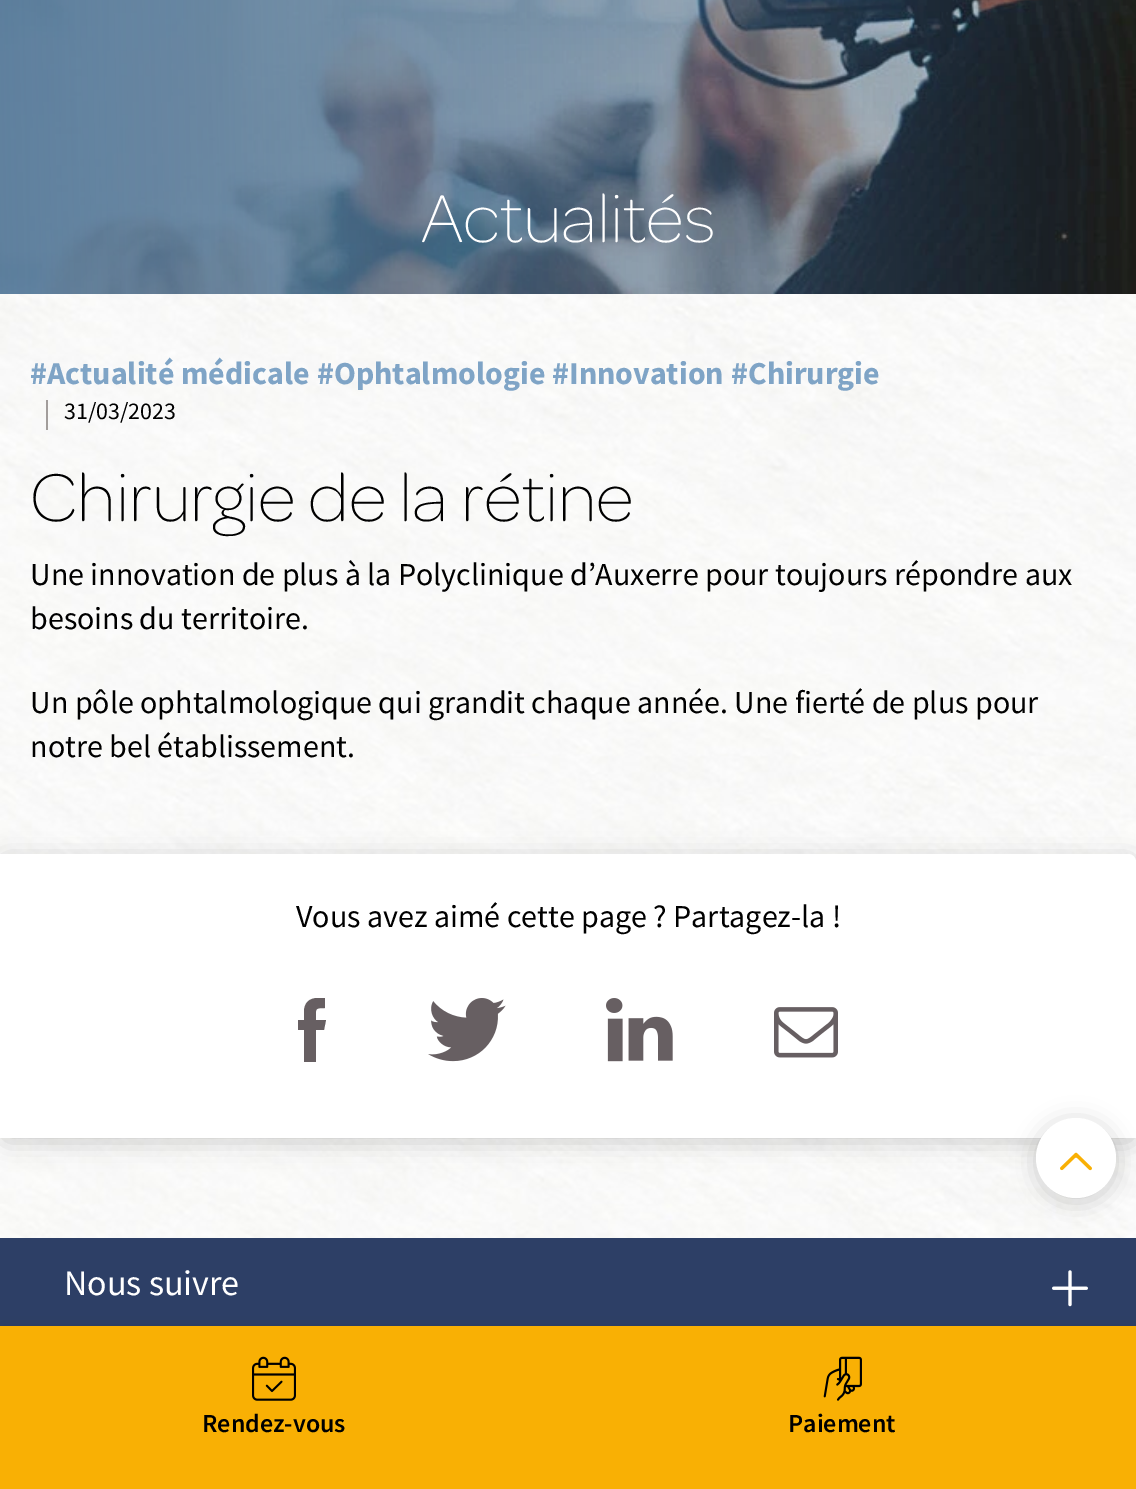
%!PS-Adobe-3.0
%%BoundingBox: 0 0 1136 1489
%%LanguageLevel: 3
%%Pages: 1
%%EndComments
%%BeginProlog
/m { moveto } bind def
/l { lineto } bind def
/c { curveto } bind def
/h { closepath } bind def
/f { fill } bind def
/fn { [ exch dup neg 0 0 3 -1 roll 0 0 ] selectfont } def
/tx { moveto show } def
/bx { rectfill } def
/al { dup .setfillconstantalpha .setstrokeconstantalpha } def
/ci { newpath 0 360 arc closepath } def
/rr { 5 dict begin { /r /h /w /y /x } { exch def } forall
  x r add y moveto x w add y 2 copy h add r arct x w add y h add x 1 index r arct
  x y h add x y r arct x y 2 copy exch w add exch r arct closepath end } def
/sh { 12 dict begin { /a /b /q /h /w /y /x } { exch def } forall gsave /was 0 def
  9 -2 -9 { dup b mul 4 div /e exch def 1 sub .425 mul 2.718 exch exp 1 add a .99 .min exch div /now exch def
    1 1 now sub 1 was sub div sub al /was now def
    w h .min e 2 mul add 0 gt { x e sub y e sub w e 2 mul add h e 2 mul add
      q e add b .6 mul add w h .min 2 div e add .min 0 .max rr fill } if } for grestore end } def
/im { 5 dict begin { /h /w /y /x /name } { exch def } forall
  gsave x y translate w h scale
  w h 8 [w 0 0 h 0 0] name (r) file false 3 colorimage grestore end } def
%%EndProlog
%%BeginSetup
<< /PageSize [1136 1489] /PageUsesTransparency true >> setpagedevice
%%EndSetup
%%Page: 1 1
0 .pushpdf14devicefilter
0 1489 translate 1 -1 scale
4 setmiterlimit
1 setgray
0 0 1136 1489 bx
(image0.raw) 0 294 1136 944 im
(image1.raw) 0 0 1136 294 im
/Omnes-ExtraLight 72 fn
(Actualités) 421 242 tx
/SourceSansPro-Bold 32 fn
0.498 0.643 0.776 setrgbcolor
(#Actualité médicale) 30 384 tx
(#Ophtalmologie) 317 384 tx
(#Innovation) 552 384 tx
(#Chirurgie) 731 384 tx
0.635 0.616 0.608 setrgbcolor
46 400 2 30 bx
/SourceSansPro-Regular 24 fn
0 setgray
(31/03/2023) 64 419 tx
/Omnes-ExtraLight 72 fn
(Chirurgie de la rétine) 30 521 tx
/SourceSansPro-Regular 32 fn
(Une innovation de plus à la Polyclinique d’Auxerre pour toujours répondre aux) 30 585 tx
(besoins du territoire.) 30 629 tx
(Un pôle ophtalmologique qui grandit chaque année. Une fierté de plus pour) 30 713 tx
(notre bel établissement.) 30 757 tx
0 858 1136 284 8 12 0.18 sh
1 setgray
0 854 m 1128 854 l 1132.5 854 1136 857.5 1136 862 c 1136 1138 l 0 1138 l h f
0 setgray
(Vous avez aimé cette page ? Partagez-la !) 296 927 tx
0.404 0.373 0.384 setrgbcolor
304 1062 m 316 1062 l 316 1030 l 324 1030 l 326 1020 l 316 1020 l 316 1009 314 1008 325 1008 c 325 998 l 318 998 l 309 998 304 1003 304 1012 c 304 1020 l 298 1020 l 298 1030 l 304 1030 l h f
(image2.raw) 428 998 78 64 im
(image3.raw) 606 998 67 64 im
(image4.raw) 774 1007 64 51 im
0.176 0.247 0.4 setrgbcolor
0 1238 1136 88 bx
0 setgray
1036 1122 80 80 40 12 0.18 sh
1 setgray
1076 1158 40 ci f
(image5.raw) 1060 1152 32 19 im
/SourceSansPro-Regular 36 fn
(Nous suivre) 64 1295 tx
(image6.raw) 1052 1270 36 37 im
0 setgray
0 1322 1136 164 0 8 0.06 sh
0.976 0.69 0.016 setrgbcolor
0 1326 1136 163 bx
(image7.raw) 252 1356 44 45 im
/SourceSansPro-SemiBold 26 fn
0 setgray
(Rendez-vous) 202 1432 tx
(image8.raw) 823 1356 39 45 im
(Paiement) 788 1432 tx
.poppdf14devicefilter showpage
%%EOF
